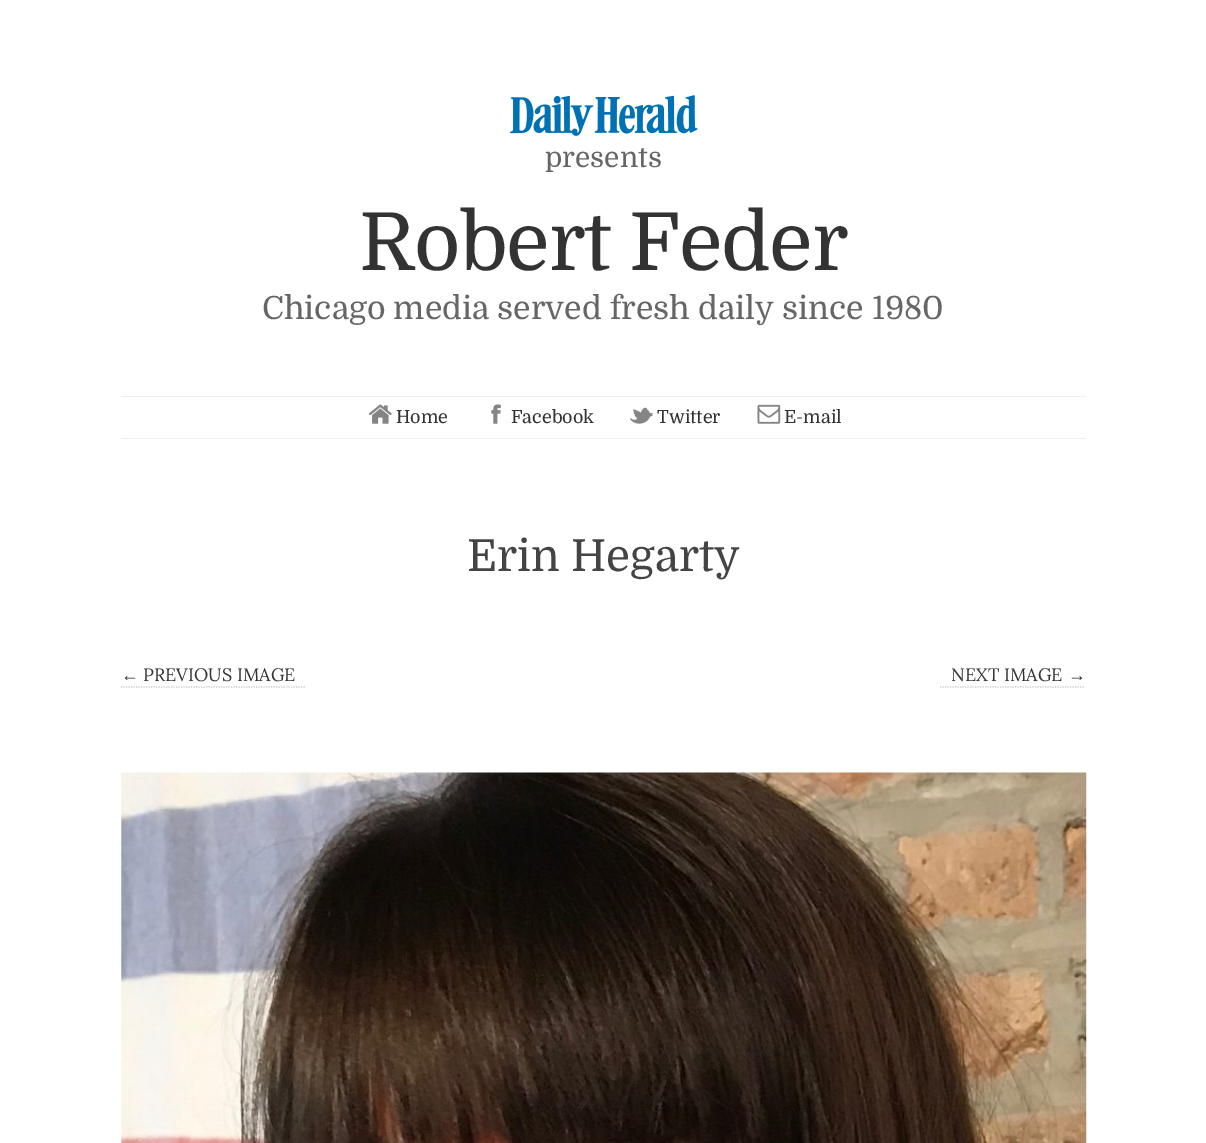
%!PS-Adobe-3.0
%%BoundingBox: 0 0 1206 1143
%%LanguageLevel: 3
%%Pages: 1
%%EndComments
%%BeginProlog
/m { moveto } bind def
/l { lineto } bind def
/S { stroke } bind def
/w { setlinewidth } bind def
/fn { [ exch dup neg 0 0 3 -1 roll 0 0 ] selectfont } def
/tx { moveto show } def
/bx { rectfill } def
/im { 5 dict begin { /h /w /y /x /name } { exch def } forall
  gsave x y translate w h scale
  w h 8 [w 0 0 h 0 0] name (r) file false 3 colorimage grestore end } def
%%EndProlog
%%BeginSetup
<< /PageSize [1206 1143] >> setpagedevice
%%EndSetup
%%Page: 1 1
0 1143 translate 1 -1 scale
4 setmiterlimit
1 setgray
0 0 1206 1143 bx
(image0.raw) 510 95 188 41 im
/Domine-Regular 28 fn
0.4 setgray
(presents) 545 167 tx
/Domine-Regular 80 fn
0.2 setgray
359 270 m -1.25 0 (Robert Feder) ashow
/Domine-Regular 32 fn
0.4 setgray
(Chicago media served fresh daily since 1980) 262 319 tx
0.933 setgray
121 396 965 1 bx
121 438 965 1 bx
(image1.raw) 368 404 24 20 im
/Domine-Regular 18 fn
0.2 setgray
(Home) 396 423 tx
(image2.raw) 491 404 10 20 im
(Facebook) 511 423 tx
(image3.raw) 630 407 23 17 im
(Twitter) 657 423 tx
(image4.raw) 757 404 24 20 im
(E-mail) 784 423 tx
/Domine-Regular 44 fn
0.267 setgray
(Erin Hegarty) 467 571 tx
/LiberationSerif-Regular 18 fn
0.2 setgray
(←) 121 681 tx
0.8 setgray
1.2 w
[1.25 1.25] 0 setdash
121 687 m 306 687 l S
/Lora-Regular 18 fn
0.2 setgray
(PREVIOUS IMAGE) 143 681 tx
(NEXT IMAGE) 951 681 tx
/LiberationSerif-Regular 18 fn
(→) 1068 681 tx
0.8 setgray
940 687 m 1085 687 l S
(image5.raw) 121 772 966 371 im
showpage
%%EOF
